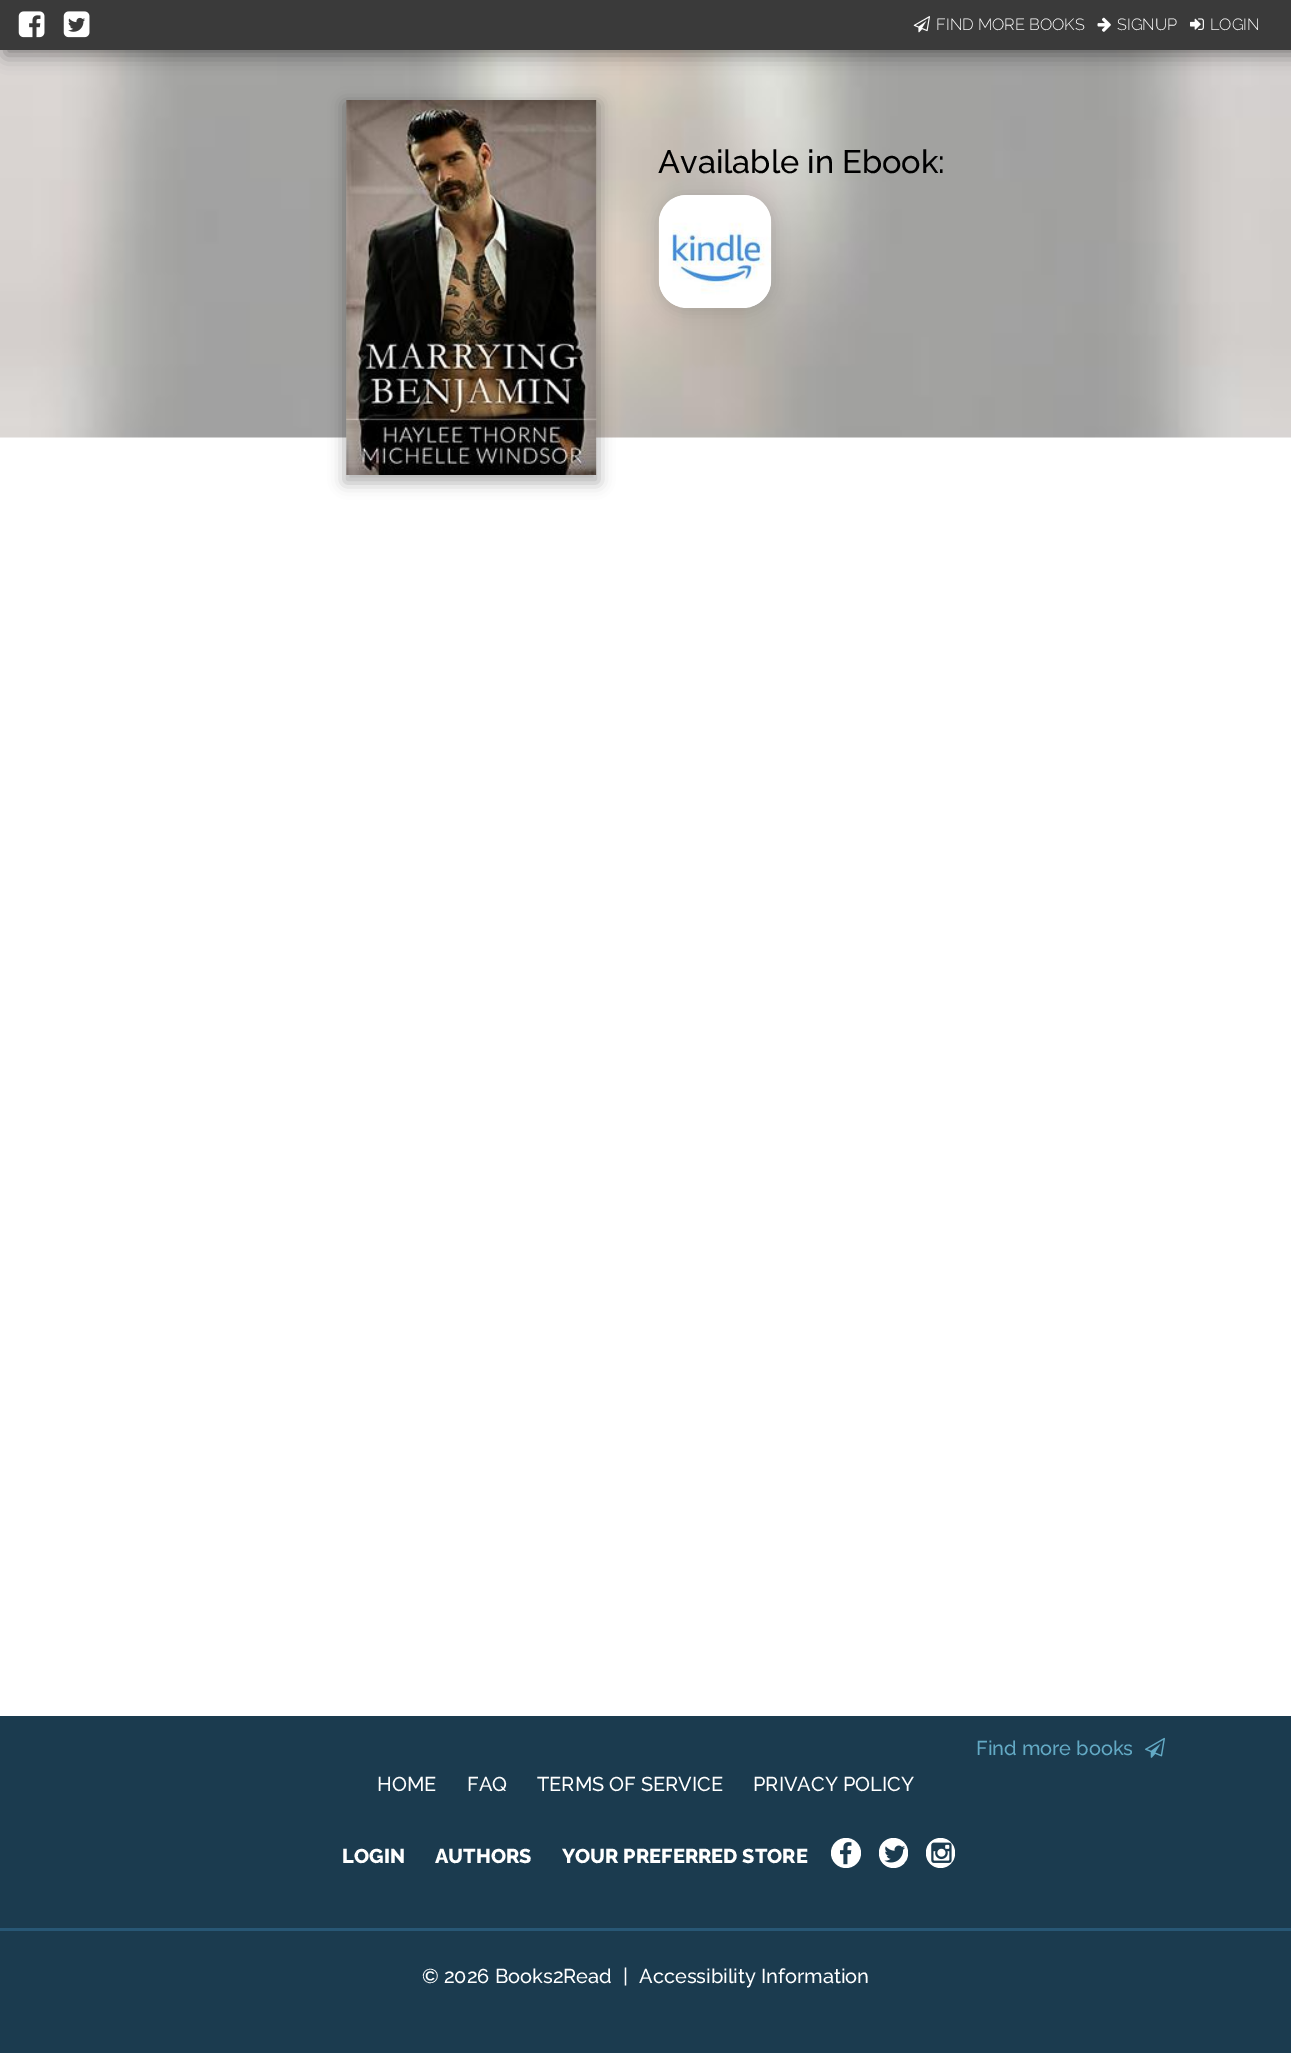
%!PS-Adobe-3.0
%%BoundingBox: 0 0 1291 2053
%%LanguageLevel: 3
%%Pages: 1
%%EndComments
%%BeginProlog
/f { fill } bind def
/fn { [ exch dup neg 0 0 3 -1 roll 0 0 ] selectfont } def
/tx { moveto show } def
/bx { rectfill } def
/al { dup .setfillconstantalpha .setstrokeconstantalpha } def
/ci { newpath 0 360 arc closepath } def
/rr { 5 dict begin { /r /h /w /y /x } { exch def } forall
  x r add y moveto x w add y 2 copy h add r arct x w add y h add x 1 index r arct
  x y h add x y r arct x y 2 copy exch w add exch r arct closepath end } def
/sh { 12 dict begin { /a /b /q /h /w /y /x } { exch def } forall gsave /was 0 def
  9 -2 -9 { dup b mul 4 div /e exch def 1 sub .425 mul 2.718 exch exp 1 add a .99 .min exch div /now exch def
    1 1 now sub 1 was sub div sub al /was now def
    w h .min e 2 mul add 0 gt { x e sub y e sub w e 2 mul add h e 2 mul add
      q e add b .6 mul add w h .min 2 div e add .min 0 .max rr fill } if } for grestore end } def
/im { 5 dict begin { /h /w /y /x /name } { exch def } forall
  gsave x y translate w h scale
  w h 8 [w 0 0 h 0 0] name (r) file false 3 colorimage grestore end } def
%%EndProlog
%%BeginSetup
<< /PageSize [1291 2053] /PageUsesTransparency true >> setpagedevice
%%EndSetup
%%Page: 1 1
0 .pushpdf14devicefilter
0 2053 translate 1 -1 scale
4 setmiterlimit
1 setgray
0 0 1291 2053 bx
(image0.raw) 0 50 1291 388 im
0 setgray
5 5 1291 50 0 9 0.4 sh
0.227 setgray
0 0 1291 50 bx
(image1.raw) 18 11 27 27 im
(image2.raw) 63 11 27 27 im
(image3.raw) 913 16 17 17 im
/Raleway-Light 16.25 fn
1 setgray
(FIND MORE BOOKS) 936 30 tx
(image4.raw) 1097 17 14 15 im
(SIGNUP) 1117 30 tx
(image5.raw) 1190 18 14 12 im
(LOGIN) 1210 30 tx
0 setgray
344 103 255 380 0 7.5 0.3 sh
(image6.raw) 346 100 251 375 im
656 195 118 118 30 7.5 0.1 sh
/Raleway-Medium 32.5 fn
(Available in Ebook:) 658 173 tx
1 setgray
659 195 112 113 28 rr f
(image7.raw) 658 195 114 112 im
0.106 0.231 0.31 setrgbcolor
0 1716 1291 337 bx
/Raleway-Medium 20 fn
0.388 0.667 0.773 setrgbcolor
(Find more books) 976 1755 tx
(image8.raw) 1145 1737 20 21 im
1 setgray
(HOME) 377 1791 tx
(FAQ) 467 1791 tx
(TERMS OF SERVICE) 537 1791 tx
(PRIVACY POLICY) 753 1791 tx
/Raleway-ExtraBold 20 fn
(LOGIN) 342 1863 tx
(AUTHORS) 435 1863 tx
(YOUR PREFERRED STORE) 562 1863 tx
846 1853 15 ci f
(image9.raw) 840 1842 12 23 im
879 1838 29 30 14.5 rr f
(image10.raw) 884 1845 22 18 im
926 1838 29 30 14.5 rr f
(image11.raw) 931 1842 21 21 im
0.157 0.341 0.459 setrgbcolor
0 1928 1291 3 bx
/Raleway-Medium 20 fn
1 setgray
(© 2026 Books2Read) 422 1983 tx
(|) 623 1983 tx
(Accessibility Information) 639 1983 tx
.poppdf14devicefilter showpage
%%EOF
